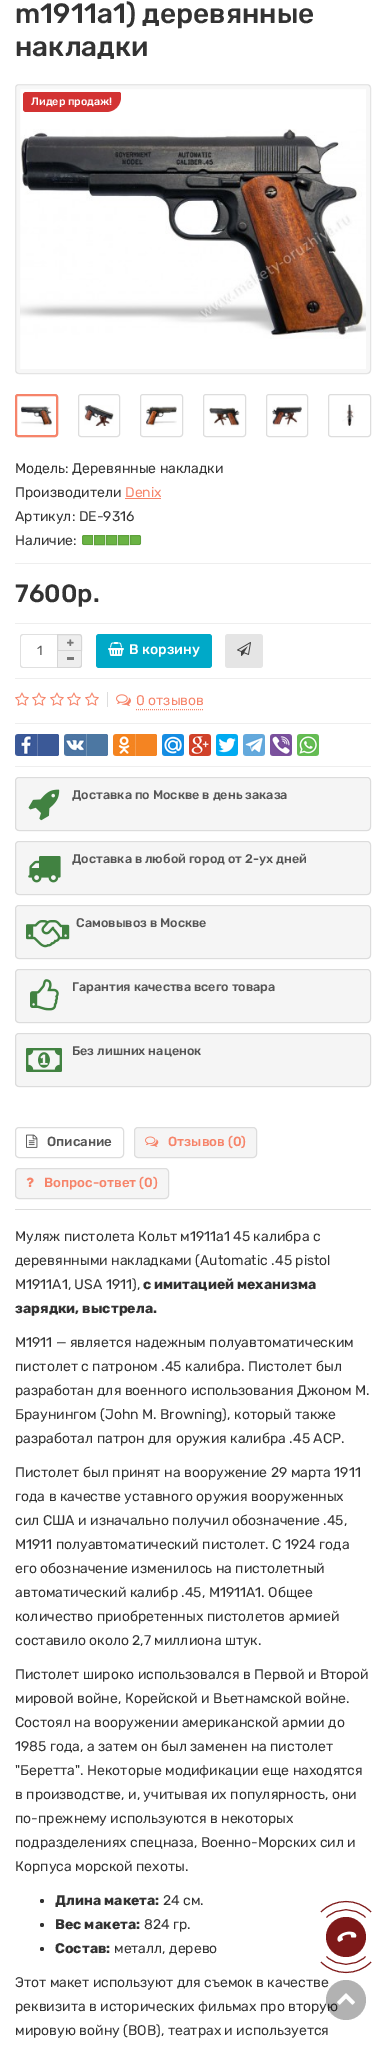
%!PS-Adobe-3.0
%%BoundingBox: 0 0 386 2045
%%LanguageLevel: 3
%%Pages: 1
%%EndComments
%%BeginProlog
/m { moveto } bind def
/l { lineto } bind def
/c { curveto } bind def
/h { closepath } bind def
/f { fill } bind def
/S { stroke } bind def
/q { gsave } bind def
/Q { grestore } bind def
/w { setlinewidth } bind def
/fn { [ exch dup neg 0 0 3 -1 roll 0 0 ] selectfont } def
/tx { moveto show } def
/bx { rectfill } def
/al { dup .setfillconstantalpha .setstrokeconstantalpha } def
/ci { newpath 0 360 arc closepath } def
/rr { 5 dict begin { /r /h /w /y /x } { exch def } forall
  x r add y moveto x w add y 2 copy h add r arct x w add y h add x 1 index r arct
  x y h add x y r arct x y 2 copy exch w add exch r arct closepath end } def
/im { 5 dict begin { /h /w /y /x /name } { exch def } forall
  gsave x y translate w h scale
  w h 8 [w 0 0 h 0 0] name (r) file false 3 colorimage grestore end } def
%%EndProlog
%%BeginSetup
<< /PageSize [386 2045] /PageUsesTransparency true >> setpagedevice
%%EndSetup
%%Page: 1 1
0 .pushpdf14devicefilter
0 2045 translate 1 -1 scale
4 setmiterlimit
1 setgray
0 0 386 2045 bx
/Rubik-Medium 28 fn
0.2 setgray
(m1911a1\) деревянные) 15 23 tx
(накладки) 15 56 tx
0.902 setgray
15.5 84.5 355 289 3.5 rr S
(image0.raw) 20 129 346 210 im
0.03 al
0 setgray
4 w
18 87 350 284 rectstroke
1 al
0.867 setgray
1 w
15.5 394.5 42 42 2.5 rr S
(image1.raw) 21 406 31 21 im
0.965 0.518 0.416 setrgbcolor
2 w
16 395 41 41 2 rr S
0.867 setgray
1 w
78.5 394.5 41 42 2.5 rr S
(image2.raw) 84 405 30 22 im
140.5 394.5 42 42 2.5 rr S
(image3.raw) 146 406 31 21 im
203.5 394.5 42 42 2.5 rr S
(image4.raw) 209 407 31 20 im
266.5 394.5 41 42 2.5 rr S
(image5.raw) 272 406 30 21 im
328.5 394.5 42 42 2.5 rr S
(image6.raw) 342 404 13 22 im
0.827 0.2 0.2 setrgbcolor
26 92 m 119 92 l 120 92 121 93 121 94 c 121 97 l 121 105.5 114.5 112 106 112 c 26 112 l 24.5 112 23 110.5 23 109 c 23 95 l 23 93.5 24.5 92 26 92 c h f
/Rubik-Medium 10.75 fn
1 setgray
(Лидер продаж!) 31 105 tx
/Rubik-Regular 14 fn
0.2 setgray
(Модель: Деревянные накладки) 15 473 tx
(Производители) 15 497 tx
0.965 0.518 0.416 setrgbcolor
(Denix) 125 497 tx
125 498 36 1 bx
0.2 setgray
(Артикул: DE-9316) 15 521 tx
(Наличие:) 15 545 tx
0.416 0.702 0.267 setrgbcolor
84 535 m 93 535 l 93 545 l 84 545 l 83 545 82 544 82 543 c 82 537 l 82 536 83 535 84 535 c h f
0.1 al
0 setgray
84 535.5 m 92.5 535.5 l 92.5 544.5 l 84 544.5 l 83 544.5 82.5 544 82.5 543 c 82.5 537 l 82.5 536 83 535.5 84 535.5 c h S
1 al
0.416 0.702 0.267 setrgbcolor
94.5 535.5 m 104.5 535.5 l 104.5 544.5 l 94.5 544.5 l h q f Q
0.373 0.631 0.239 setrgbcolor
S
0.416 0.702 0.267 setrgbcolor
106.5 535.5 m 116.5 535.5 l 116.5 544.5 l 106.5 544.5 l h q f Q
0.373 0.631 0.239 setrgbcolor
S
0.416 0.702 0.267 setrgbcolor
118.5 535.5 m 128.5 535.5 l 128.5 544.5 l 118.5 544.5 l h q f Q
0.373 0.631 0.239 setrgbcolor
S
0.416 0.702 0.267 setrgbcolor
130 535 m 139 535 l 140 535 141 536 141 537 c 141 543 l 141 544 140 545 139 545 c 130 545 l h f
0.1 al
0 setgray
130.5 535.5 m 139 535.5 l 140 535.5 140.5 536 140.5 537 c 140.5 543 l 140.5 544 140 544.5 139 544.5 c 130.5 544.5 l h S
1 al
0.933 setgray
15 563 356 1 bx
/Rubik-Medium 25 fn
0.2 setgray
(7600р.) 15 602 tx
0.933 setgray
15 623 356 1 bx
0.878 setgray
23 634 m 58 634 l 58 668 l 23 668 l 21.5 668 20 666.5 20 665 c 20 637 l 20 635.5 21.5 634 23 634 c h 23 635 m 58 635 l 58 667 l 23 667 l 22 667 21 666 21 665 c 21 637 l 21 636 22 635 23 635 c h eofill
/Rubik-Regular 13.25 fn
0.333 setgray
(1) 37 655 tx
0.933 setgray
57 634 m 79 634 l 80.5 634 82 635.5 82 637 c 82 651 l 57 651 l h f
0.1 al
0 setgray
57.5 634.5 m 79 634.5 l 80.5 634.5 81.5 635.5 81.5 637 c 81.5 650.5 l 57.5 650.5 l h S
1 al
(image7.raw) 67 639 7 7 im
0.933 setgray
57 651 m 82 651 l 82 665 l 82 666.5 80.5 668 79 668 c 57 668 l h f
0.839 setgray
57 651 m 82 651 l 82 665 l 82 666.5 80.5 668 79 668 c 57 668 l h 58 651 m 81 651 l 81 665 l 81 666 80 667 79 667 c 58 667 l h eofill
0.467 setgray
67 657 7 3 bx
0 0.663 0.784 setrgbcolor
96 634 116 34 3 rr f
(image8.raw) 108 642 16 14 im
/Rubik-Medium 14 fn
1 setgray
(В корзину) 129 654 tx
0.898 setgray
225 634 38 34 3 rr f
(image9.raw) 237 642 14 14 im
0.933 setgray
15 678 356 1 bx
(image10.raw) 15 692 14 14 im
(image10.raw) 32 692 14 14 im
(image10.raw) 50 692 14 14 im
(image10.raw) 67 692 14 14 im
(image10.raw) 85 692 14 14 im
0.867 setgray
107 692 1 15 bx
(image11.raw) 116 694 15 12 im
/Rubik-Regular 14 fn
0.965 0.518 0.416 setrgbcolor
(0 отзывов) 136 705 tx
[1 1] 0 setdash
136 709.5 m 204 709.5 l S
0.933 setgray
15 723 356 1 bx
(image12.raw) 15 734 44 22 im
0.231 0.349 0.592 setrgbcolor
37 734 m 57 734 l 58 734 59 735 59 736 c 59 754 l 59 755 58 756 57 756 c 37 756 l h f
0.384 0.478 0.675 setrgbcolor
37 734 1 22 bx
(image13.raw) 64 734 44 22 im
0.298 0.467 0.635 setrgbcolor
86 734 m 106 734 l 107 734 108 735 108 736 c 108 754 l 108 755 107 756 106 756 c 86 756 l h f
0.439 0.573 0.71 setrgbcolor
86 734 1 22 bx
(image14.raw) 113 734 44 22 im
0.957 0.518 0.133 setrgbcolor
135 734 m 155 734 l 156 734 157 735 157 736 c 157 754 l 157 755 156 756 155 756 c 135 756 l h f
0.965 0.616 0.306 setrgbcolor
135 734 1 22 bx
(image15.raw) 162 734 22 22 im
(image16.raw) 189 734 22 22 im
(image17.raw) 216 734 22 22 im
(image18.raw) 243 734 22 22 im
(image19.raw) 270 734 22 22 im
(image20.raw) 297 734 22 22 im
0.933 setgray
15 766 356 1 bx
0.961 setgray
15 777 356 54 4 rr f
0.973 setgray
19 779 m 367 779 l 369 779 370 780 370 782 c 370 780 369 778 367 778 c 19 778 l 17 779 l 16 782 l 16 780 17 779 19 779 c h f
0.1 al
0 setgray
[] 0 setdash
15.5 777.5 355 53 3.5 rr S
1 al
(image21.raw) 28 789 32 32 im
/Rubik-Medium 12.6 fn
0.333 setgray
(Доставка по Москве в день заказа) 72 799 tx
0.961 setgray
15 841 356 54 4 rr f
0.973 setgray
19 843 m 367 843 l 369 843 370 844 370 846 c 370 844 369 842 367 842 c 19 842 l 17 843 l 16 846 l 16 844 17 843 19 843 c h f
0.1 al
0 setgray
15.5 841.5 355 53 3.5 rr S
1 al
(image22.raw) 28 856 33 27 im
0.333 setgray
(Доставка в любой город от 2-ух дней) 72 863 tx
0.961 setgray
15 905 356 54 4 rr f
0.973 setgray
19 907 m 367 907 l 369 907 370 908 370 910 c 370 908 369 906 367 906 c 19 906 l 17 907 l 16 910 l 16 908 17 907 19 907 c h f
0.1 al
0 setgray
15.5 905.5 355 53 3.5 rr S
1 al
(image23.raw) 26 920 44 28 im
0.333 setgray
(Самовывоз в Москве) 76 927 tx
0.961 setgray
15 969 356 54 4 rr f
0.973 setgray
19 971 m 367 971 l 369 971 370 972 370 974 c 370 972 369 970 367 970 c 19 970 l 17 971 l 16 974 l 16 972 17 971 19 971 c h f
0.1 al
0 setgray
15.5 969.5 355 53 3.5 rr S
1 al
(image24.raw) 30 979 29 32 im
0.333 setgray
(Гарантия качества всего товара) 72 991 tx
0.961 setgray
15 1033 356 54 4 rr f
0.973 setgray
19 1035 m 367 1035 l 369 1035 370 1036 370 1038 c 370 1036 369 1034 367 1034 c 19 1034 l 17 1035 l 16 1038 l 16 1036 17 1035 19 1035 c h f
0.1 al
0 setgray
15.5 1033.5 355 53 3.5 rr S
1 al
(image25.raw) 26 1048 36 24 im
0.333 setgray
(Без лишних наценок) 72 1055 tx
0.867 setgray
15 1209 356 1 bx
15.5 1127.5 108 30 3.5 rr S
(image26.raw) 26 1134 12 14 im
/Rubik-Medium 13.25 fn
0.333 setgray
(Описание) 47 1146 tx
0.961 setgray
134.5 1127.5 122 30 3.5 rr q f Q
0.867 setgray
S
(image27.raw) 145 1136 14 11 im
0.965 0.518 0.416 setrgbcolor
(Отзывов \(0\)) 168 1146 tx
0.961 setgray
15.5 1168.5 153 30 3.5 rr q f Q
0.867 setgray
S
(image28.raw) 26 1177 8 10 im
0.965 0.518 0.416 setrgbcolor
(Вопрос-ответ \(0\)) 44 1187 tx
/Rubik-Regular 14 fn
0.2 setgray
(Муляж пистолета Кольт м1911а1 45 калибра с) 15 1241 tx
(деревянными накладками \(Automatic .45 pistol) 15 1265 tx
(M1911A1, USA 1911\),) 15 1289 tx
/Rubik-Bold 14 fn
(с имитацией механизма) 143 1289 tx
(зарядки, выстрела.) 15 1313 tx
/Rubik-Regular 14 fn
(M1911 — является надежным полуавтоматическим) 15 1347 tx
(пистолет с патроном .45 калибра. Пистолет был) 15 1371 tx
(разработан для военного использования Джоном М.) 15 1395 tx
(Браунингом \(John M. Browning\), который также) 15 1419 tx
(разработал патрон для оружия калибра .45 ACP.) 15 1443 tx
(Пистолет был принят на вооружение 29 марта 1911) 15 1477 tx
(года в качестве уставного оружия вооруженных) 15 1501 tx
(сил США и изначально получил обозначение .45,) 15 1525 tx
(M1911 полуавтоматический пистолет. С 1924 года) 15 1549 tx
(его обозначение изменилось на пистолетный) 15 1573 tx
(автоматический калибр .45, M1911A1. Общее) 15 1597 tx
(количество приобретенных пистолетов армией) 15 1621 tx
(составило около 2,7 миллиона штук.) 15 1645 tx
(Пистолет широко использовался в Первой и Второй) 15 1679 tx
(мировой войне, Корейской и Вьетнамской войне.) 15 1703 tx
(Состоял на вооружении американской армии до) 15 1727 tx
(1985 года, а затем он был заменен на пистолет) 15 1751 tx
("Беретта". Некоторые модификации еще находятся) 15 1775 tx
(в производстве, и, учитывая их популярность, они) 15 1799 tx
(по-прежнему используются в некоторых) 15 1823 tx
(подразделениях спецназа, Военно-Морских сил и) 15 1847 tx
(Корпуса морской пехоты.) 15 1871 tx
42 1901 2 ci f
/Rubik-Bold 14 fn
(Длина макета:) 55 1905 tx
/Rubik-Regular 14 fn
(24 см.) 163 1905 tx
42 1925 2 ci f
/Rubik-Bold 14 fn
(Вес макета:) 55 1929 tx
/Rubik-Regular 14 fn
(824 гр.) 144 1929 tx
42 1949 2 ci f
/Rubik-Bold 14 fn
(Состав:) 55 1953 tx
/Rubik-Regular 14 fn
(металл, дерево) 114 1953 tx
(Этот макет используют для съемок в качестве) 15 1987 tx
(реквизита в исторических фильмах про вторую) 15 2011 tx
(мировую войну \(ВОВ\), театрах и используется) 15 2035 tx
0.494 0.098 0.098 setrgbcolor
346 1937 20 ci f
326.5 1917.5 m 337 1907 355 1907 365.5 1917.5 c 365.5 1956.5 m 355 1967 337 1967 326.5 1956.5 c S
321 1912 m 334.5 1898 357.5 1898 371 1912 c S
371 1962 m 357.5 1976 334.5 1976 321 1962 c S
(image29.raw) 337 1931 20 11 im
0.3 al
0 setgray
346 2000 20 ci f
1 al
(image30.raw) 337 1993 18 12 im
.poppdf14devicefilter showpage
%%EOF
